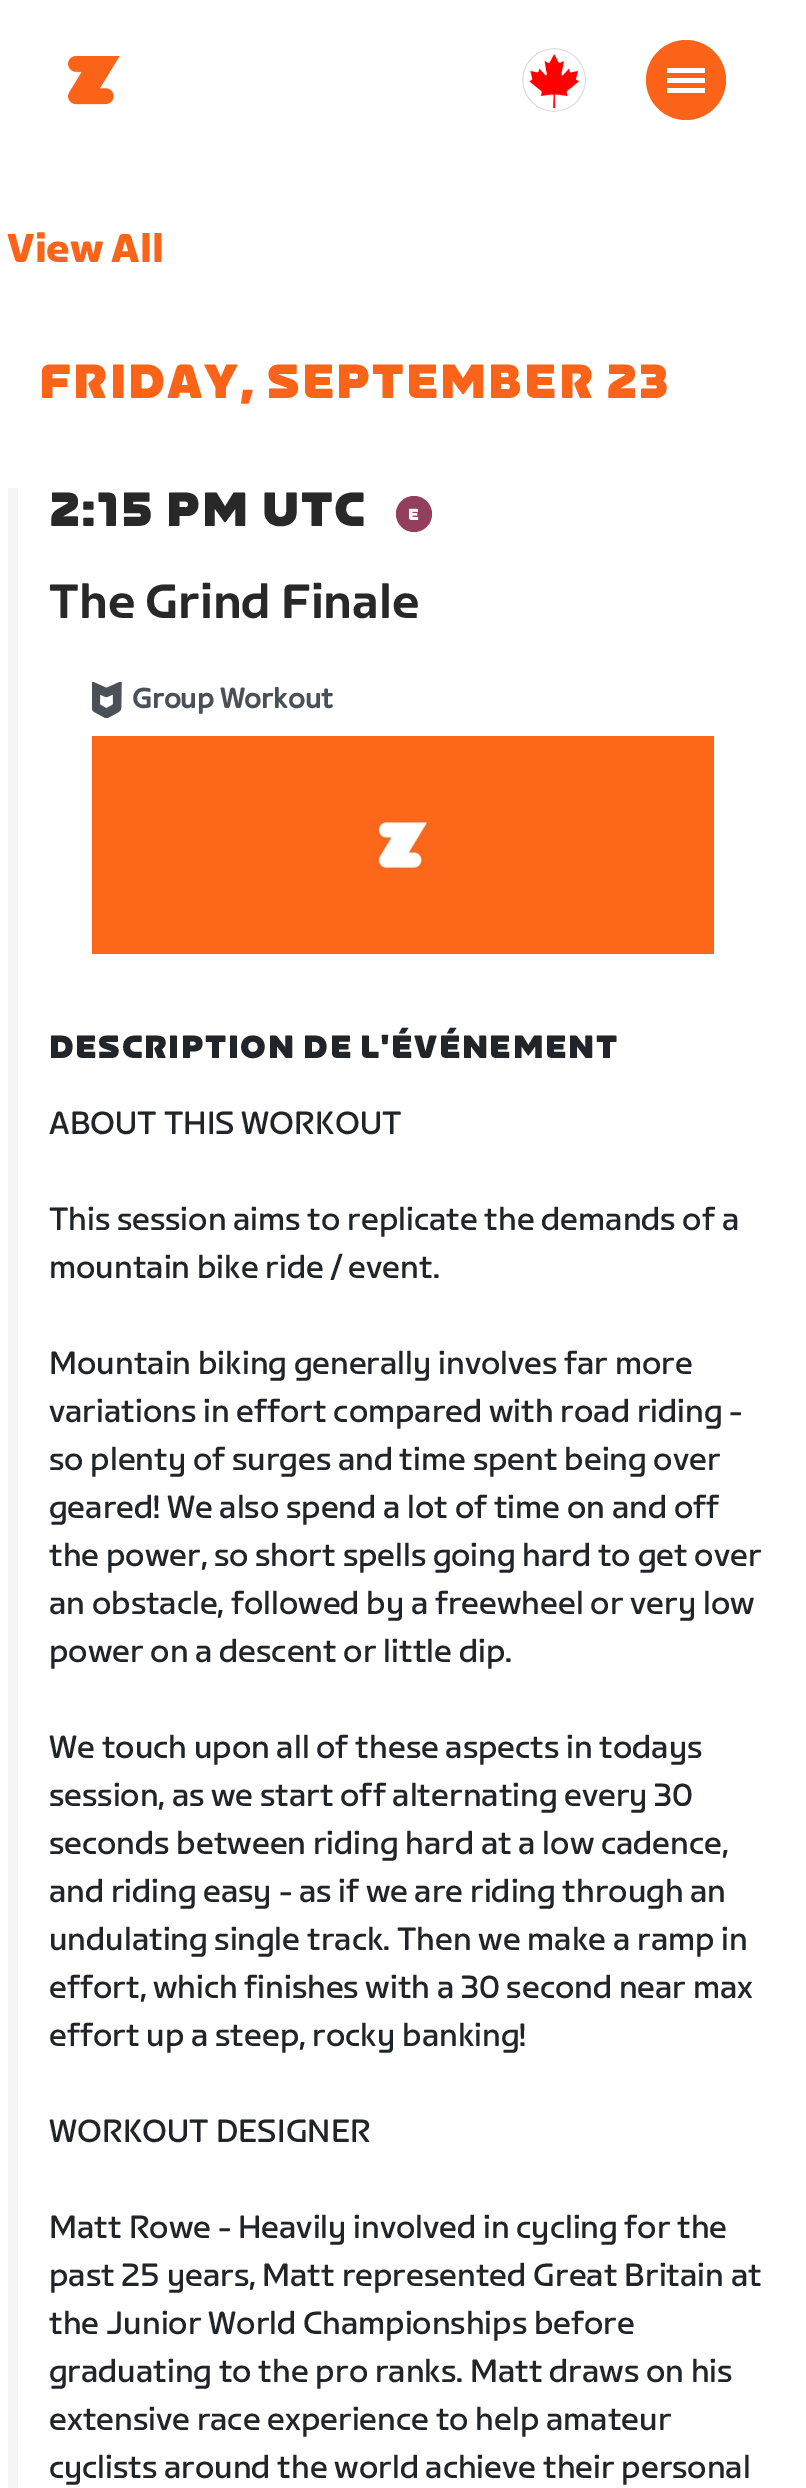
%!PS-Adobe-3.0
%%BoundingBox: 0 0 806 2488
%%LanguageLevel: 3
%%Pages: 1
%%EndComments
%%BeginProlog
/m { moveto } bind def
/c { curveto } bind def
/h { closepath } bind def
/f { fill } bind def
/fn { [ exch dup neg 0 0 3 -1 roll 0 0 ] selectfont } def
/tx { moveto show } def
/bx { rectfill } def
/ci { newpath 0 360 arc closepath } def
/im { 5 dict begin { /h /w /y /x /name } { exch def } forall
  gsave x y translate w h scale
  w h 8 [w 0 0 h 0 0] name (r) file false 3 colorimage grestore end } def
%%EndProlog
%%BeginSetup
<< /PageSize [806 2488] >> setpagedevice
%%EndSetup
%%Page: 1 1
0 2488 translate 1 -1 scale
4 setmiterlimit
1 setgray
0 0 806 2488 bx
(image0.raw) 68 56 52 49 im
(image1.raw) 522 48 64 64 im
0.984 0.392 0.094 setrgbcolor
646 80 m 646 58 664 40 686 40 c 708 40 726 58 726 80 c 726 102 708 120 686 120 c 664 120 646 102 646 80 c h f
1 setgray
667 68 38 5 bx
667 78 38 5 bx
667 88 38 5 bx
/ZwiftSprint-Bold 40 fn
0.984 0.392 0.094 setrgbcolor
(View All) 7 262 tx
/ZwiftSprint-Black 48 fn
39 398 m 2 0 (FRIDAY, SEPTEMBER 23) ashow
0.961 setgray
8 488 10 2000 bx
0.157 setgray
49 526 m 2 0 (2:15 PM UTC) ashow
0.58 0.243 0.369 setrgbcolor
414 514 18 ci f
(image2.raw) 408 508 11 12 im
/ZwiftSprint-Medium 48 fn
0.157 setgray
(The Grind Finale) 49 618 tx
(image3.raw) 92 682 30 36 im
/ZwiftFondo-Bold 28 fn
0.286 0.314 0.341 setrgbcolor
(Group Workout) 132 708 tx
(image4.raw) 92 736 622 218 im
/ZwiftSprint-Black 32 fn
0.129 0.145 0.161 setrgbcolor
49 1058 m 1.6 0 (DESCRIPTION DE L'ÉVÉNEMENT) ashow
/ZwiftSprint-Regular 32 fn
(ABOUT THIS WORKOUT) 49 1134 tx
(This session aims to replicate the demands of a) 49 1230 tx
(mountain bike ride / event.) 49 1278 tx
(Mountain biking generally involves far more) 49 1374 tx
(variations in effort compared with road riding -) 49 1422 tx
(so plenty of surges and time spent being over) 49 1470 tx
(geared! We also spend a lot of time on and off) 49 1518 tx
(the power, so short spells going hard to get over) 49 1566 tx
(an obstacle, followed by a freewheel or very low) 49 1614 tx
(power on a descent or little dip.) 49 1662 tx
(We touch upon all of these aspects in todays) 49 1758 tx
(session, as we start off alternating every 30) 49 1806 tx
(seconds between riding hard at a low cadence,) 49 1854 tx
(and riding easy - as if we are riding through an) 49 1902 tx
(undulating single track. Then we make a ramp in) 49 1950 tx
(effort, which finishes with a 30 second near max) 49 1998 tx
(effort up a steep, rocky banking!) 49 2046 tx
(WORKOUT DESIGNER) 49 2142 tx
(Matt Rowe - Heavily involved in cycling for the) 49 2238 tx
(past 25 years, Matt represented Great Britain at) 49 2286 tx
(the Junior World Championships before) 49 2334 tx
(graduating to the pro ranks. Matt draws on his) 49 2382 tx
(extensive race experience to help amateur) 49 2430 tx
(cyclists around the world achieve their personal) 49 2478 tx
showpage
%%EOF
